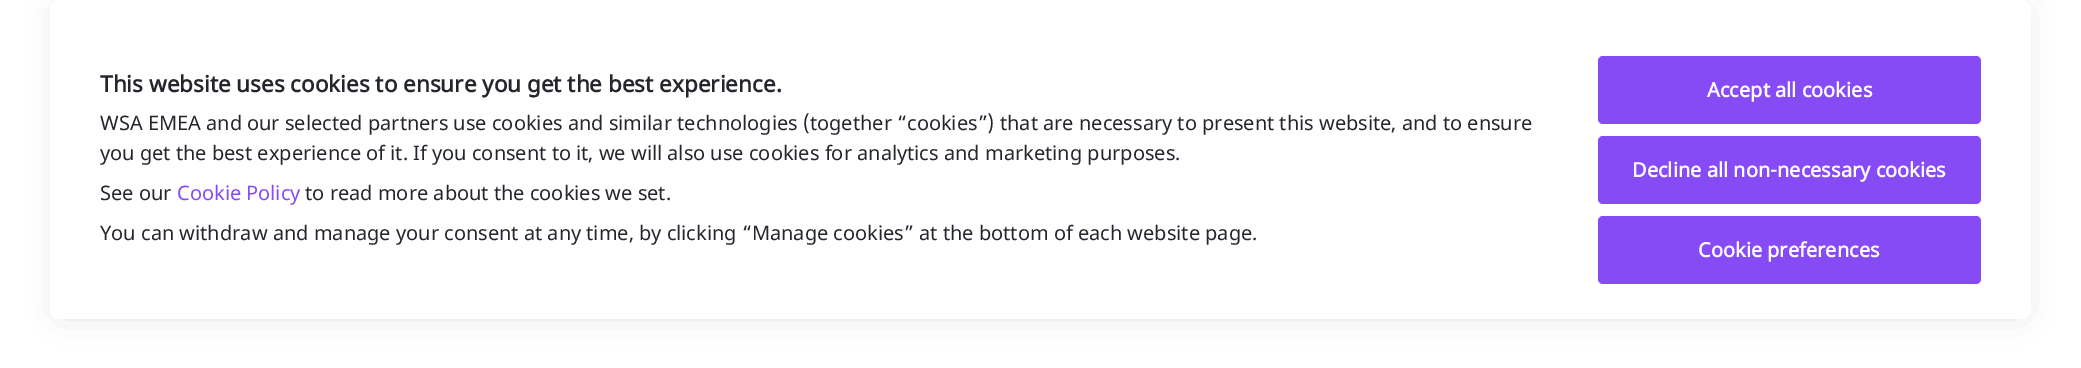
%!PS-Adobe-3.0
%%BoundingBox: 0 0 2081 368
%%LanguageLevel: 3
%%Pages: 1
%%EndComments
%%BeginProlog
/f { fill } bind def
/fn { [ exch dup neg 0 0 3 -1 roll 0 0 ] selectfont } def
/tx { moveto show } def
/bx { rectfill } def
/al { dup .setfillconstantalpha .setstrokeconstantalpha } def
/rr { 5 dict begin { /r /h /w /y /x } { exch def } forall
  x r add y moveto x w add y 2 copy h add r arct x w add y h add x 1 index r arct
  x y h add x y r arct x y 2 copy exch w add exch r arct closepath end } def
/sh { 12 dict begin { /a /b /q /h /w /y /x } { exch def } forall gsave /was 0 def
  9 -2 -9 { dup b mul 4 div /e exch def 1 sub .425 mul 2.718 exch exp 1 add a .99 .min exch div /now exch def
    1 1 now sub 1 was sub div sub al /was now def
    w h .min e 2 mul add 0 gt { x e sub y e sub w e 2 mul add h e 2 mul add
      q e add b .6 mul add w h .min 2 div e add .min 0 .max rr fill } if } for grestore end } def
%%EndProlog
%%BeginSetup
<< /PageSize [2081 368] /PageUsesTransparency true >> setpagedevice
%%EndSetup
%%Page: 1 1
0 .pushpdf14devicefilter
0 368 translate 1 -1 scale
4 setmiterlimit
1 setgray
0 0 2081 368 bx
0 setgray
63 15 1956 294 0 17 0.18 sh
1 setgray
50 0 1981 319 10 rr f
/NotoSans-Bold 22.5 fn
0.149 0.145 0.18 setrgbcolor
(This website uses cookies to ensure you get the best experience.) 100 92 tx
/NotoSans-Regular 20 fn
(WSA EMEA and our selected partners use cookies and similar technologies \(together “cookies”\) that are necessary to present this website, and to ensure) 100 130 tx
(you get the best experience of it. If you consent to it, we will also use cookies for analytics and marketing purposes.) 100 160 tx
(See our) 100 200 tx
0.529 0.294 0.965 setrgbcolor
(Cookie Policy) 177 200 tx
0.149 0.145 0.18 setrgbcolor
(to read more about the cookies we set.) 305 200 tx
(You can withdraw and manage your consent at any time, by clicking “Manage cookies” at the bottom of each website page.) 100 240 tx
0.529 0.294 0.965 setrgbcolor
1598 56 383 68 5 rr f
/NotoSans-Bold 20 fn
1 setgray
(Accept all cookies) 1707 97 tx
0.529 0.294 0.965 setrgbcolor
1598 136 383 68 5 rr f
1 setgray
(Decline all non-necessary cookies) 1632 177 tx
0.529 0.294 0.965 setrgbcolor
1598 216 383 68 5 rr f
1 setgray
(Cookie preferences) 1698 257 tx
.poppdf14devicefilter showpage
%%EOF
